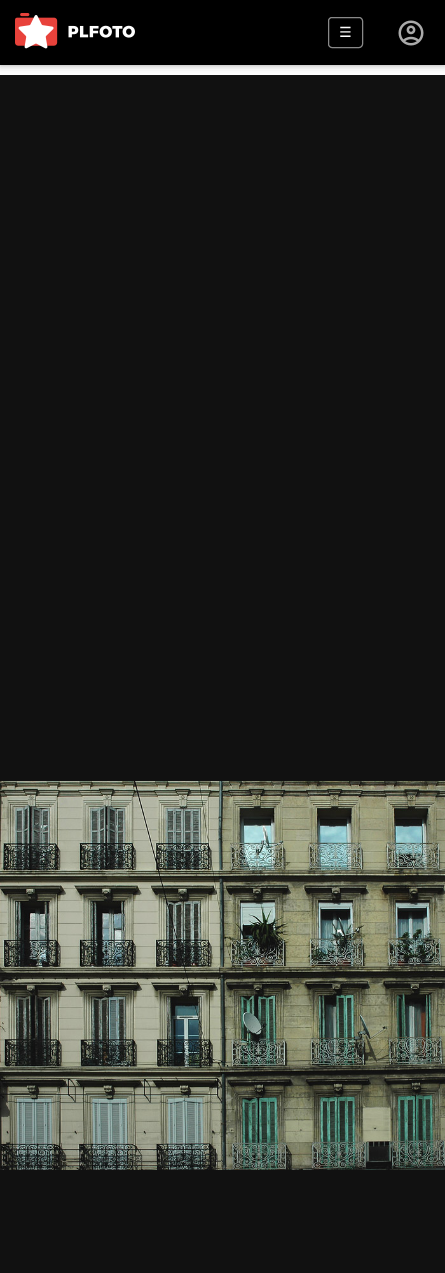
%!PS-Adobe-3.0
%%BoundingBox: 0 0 445 1273
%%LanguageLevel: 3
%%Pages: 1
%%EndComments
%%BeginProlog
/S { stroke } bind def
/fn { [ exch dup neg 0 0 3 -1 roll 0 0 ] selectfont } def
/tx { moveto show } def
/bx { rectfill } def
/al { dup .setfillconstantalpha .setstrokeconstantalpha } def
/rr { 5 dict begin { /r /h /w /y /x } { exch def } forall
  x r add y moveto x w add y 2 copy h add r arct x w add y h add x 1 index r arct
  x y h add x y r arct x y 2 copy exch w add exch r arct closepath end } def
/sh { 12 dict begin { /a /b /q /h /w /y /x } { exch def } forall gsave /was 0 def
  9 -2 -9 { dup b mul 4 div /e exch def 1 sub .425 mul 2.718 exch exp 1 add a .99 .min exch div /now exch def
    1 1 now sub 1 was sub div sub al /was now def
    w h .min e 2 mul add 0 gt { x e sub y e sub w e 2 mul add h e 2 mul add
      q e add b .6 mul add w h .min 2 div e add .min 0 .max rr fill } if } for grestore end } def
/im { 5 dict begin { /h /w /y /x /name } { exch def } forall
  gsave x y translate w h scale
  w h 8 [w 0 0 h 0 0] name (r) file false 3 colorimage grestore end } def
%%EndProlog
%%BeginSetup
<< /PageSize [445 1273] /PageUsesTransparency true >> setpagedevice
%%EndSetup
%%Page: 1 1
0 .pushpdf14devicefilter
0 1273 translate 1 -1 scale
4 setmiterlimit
1 setgray
0 0 445 1273 bx
0 setgray
0 1 445 65 0 1 0.11 sh
0.067 setgray
0 75 445 1198 bx
0 setgray
0 3 445 65 0 3.5 0.13 sh
0 0 445 65 bx
(image0.raw) 15 13 120 36 im
0.533 setgray
328.5 17.5 34 30 3.5 rr S
/DejaVuSans-Regular 14 fn
1 setgray
(☰) 339 37 tx
(image1.raw) 398 20 26 26 im
(image2.raw) 0 781 445 389 im
.poppdf14devicefilter showpage
%%EOF
